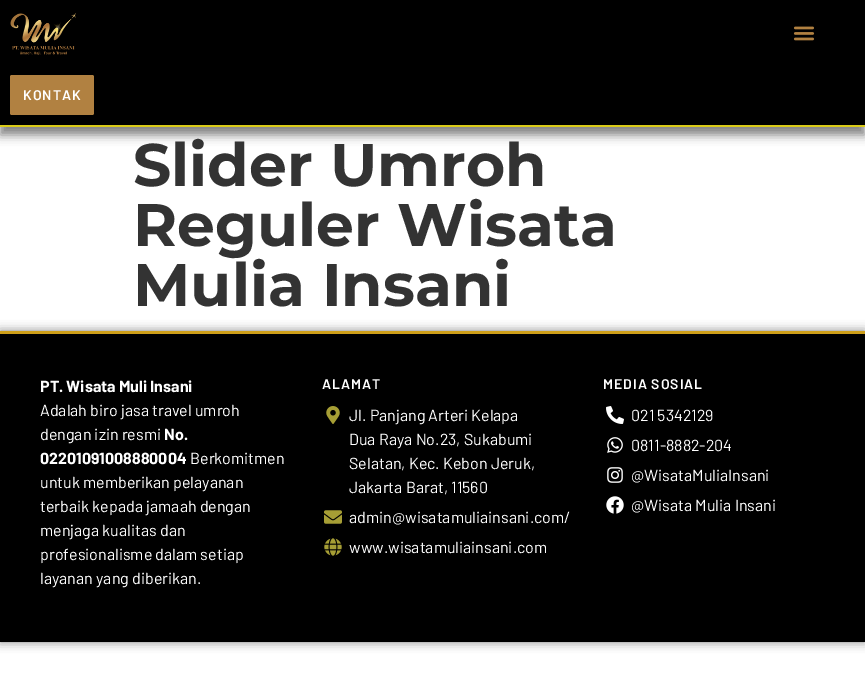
%!PS-Adobe-3.0
%%BoundingBox: 0 0 865 699
%%LanguageLevel: 3
%%Pages: 1
%%EndComments
%%BeginProlog
/m { moveto } bind def
/f { fill } bind def
/fn { [ exch dup neg 0 0 3 -1 roll 0 0 ] selectfont } def
/tx { moveto show } def
/bx { rectfill } def
/al { dup .setfillconstantalpha .setstrokeconstantalpha } def
/rr { 5 dict begin { /r /h /w /y /x } { exch def } forall
  x r add y moveto x w add y 2 copy h add r arct x w add y h add x 1 index r arct
  x y h add x y r arct x y 2 copy exch w add exch r arct closepath end } def
/sh { 12 dict begin { /a /b /q /h /w /y /x } { exch def } forall gsave /was 0 def
  9 -2 -9 { dup b mul 4 div /e exch def 1 sub .425 mul 2.718 exch exp 1 add a .99 .min exch div /now exch def
    1 1 now sub 1 was sub div sub al /was now def
    w h .min e 2 mul add 0 gt { x e sub y e sub w e 2 mul add h e 2 mul add
      q e add b .6 mul add w h .min 2 div e add .min 0 .max rr fill } if } for grestore end } def
/im { 5 dict begin { /h /w /y /x /name } { exch def } forall
  gsave x y translate w h scale
  w h 8 [w 0 0 h 0 0] name (r) file false 3 colorimage grestore end } def
%%EndProlog
%%BeginSetup
<< /PageSize [865 699] /PageUsesTransparency true >> setpagedevice
%%EndSetup
%%Page: 1 1
0 .pushpdf14devicefilter
0 699 translate 1 -1 scale
4 setmiterlimit
1 setgray
0 0 865 699 bx
0 setgray
0 8 865 127 0 5 0.5 sh
0 0 865 125 bx
0.855 0.796 0.094 setrgbcolor
0 125 865 2 bx
(image0.raw) 10 13 66 42 im
(image1.raw) 793 26 22 15 im
0.694 0.506 0.255 setrgbcolor
10 75 84 40 2 rr f
/Barlow-SemiBold 14 fn
1 setgray
23 100 m 1 0 (KONTAK) ashow
/Montserrat-Bold 60 fn
0.2 setgray
(Slider Umroh) 133 186 tx
(Reguler Wisata) 133 246 tx
(Mulia Insani) 133 306 tx
0 setgray
0 331 865 311 0 5 0.5 sh
0 334 865 308 bx
0.808 0.624 0.098 setrgbcolor
0 331 865 3 bx
/Barlow-Bold 16 fn
1 setgray
(PT. Wisata Muli Insani) 40 392 tx
/Barlow-Regular 16 fn
(Adalah biro jasa travel umroh) 40 416 tx
(dengan izin resmi) 40 440 tx
/Barlow-Bold 16 fn
(No.) 164 440 tx
(02201091008880004) 40 464 tx
/Barlow-Regular 16 fn
(Berkomitmen) 190 464 tx
(untuk memberikan pelayanan) 40 488 tx
(terbaik kepada jamaah dengan) 40 512 tx
(menjaga kualitas dan) 40 536 tx
(profesionalisme dalam setiap) 40 560 tx
(layanan yang diberikan.) 40 584 tx
/Barlow-SemiBold 14 fn
322 389 m 1 0 (ALAMAT) ashow
(image2.raw) 326 406 14 18 im
/Barlow-Regular 16 fn
(Jl. Panjang Arteri Kelapa) 349 421 tx
(Dua Raya No.23, Sukabumi) 349 445 tx
(Selatan, Kec. Kebon Jeruk,) 349 469 tx
(Jakarta Barat, 11560) 349 493 tx
(image3.raw) 324 510 18 14 im
(admin@wisatamuliainsani.com/) 349 523 tx
(image4.raw) 324 538 18 18 im
(www.wisatamuliainsani.com) 349 553 tx
/Barlow-SemiBold 14 fn
603 389 m 1 0 (MEDIA SOSIAL) ashow
(image5.raw) 606 406 18 18 im
/Barlow-Regular 16 fn
(021 5342129) 631 421 tx
(image6.raw) 607 437 16 16 im
(0811-8882-204) 631 451 tx
(image7.raw) 607 467 16 16 im
(@WisataMuliaInsani) 631 481 tx
(image8.raw) 606 496 18 18 im
(@Wisata Mulia Insani) 631 511 tx
.poppdf14devicefilter showpage
%%EOF
